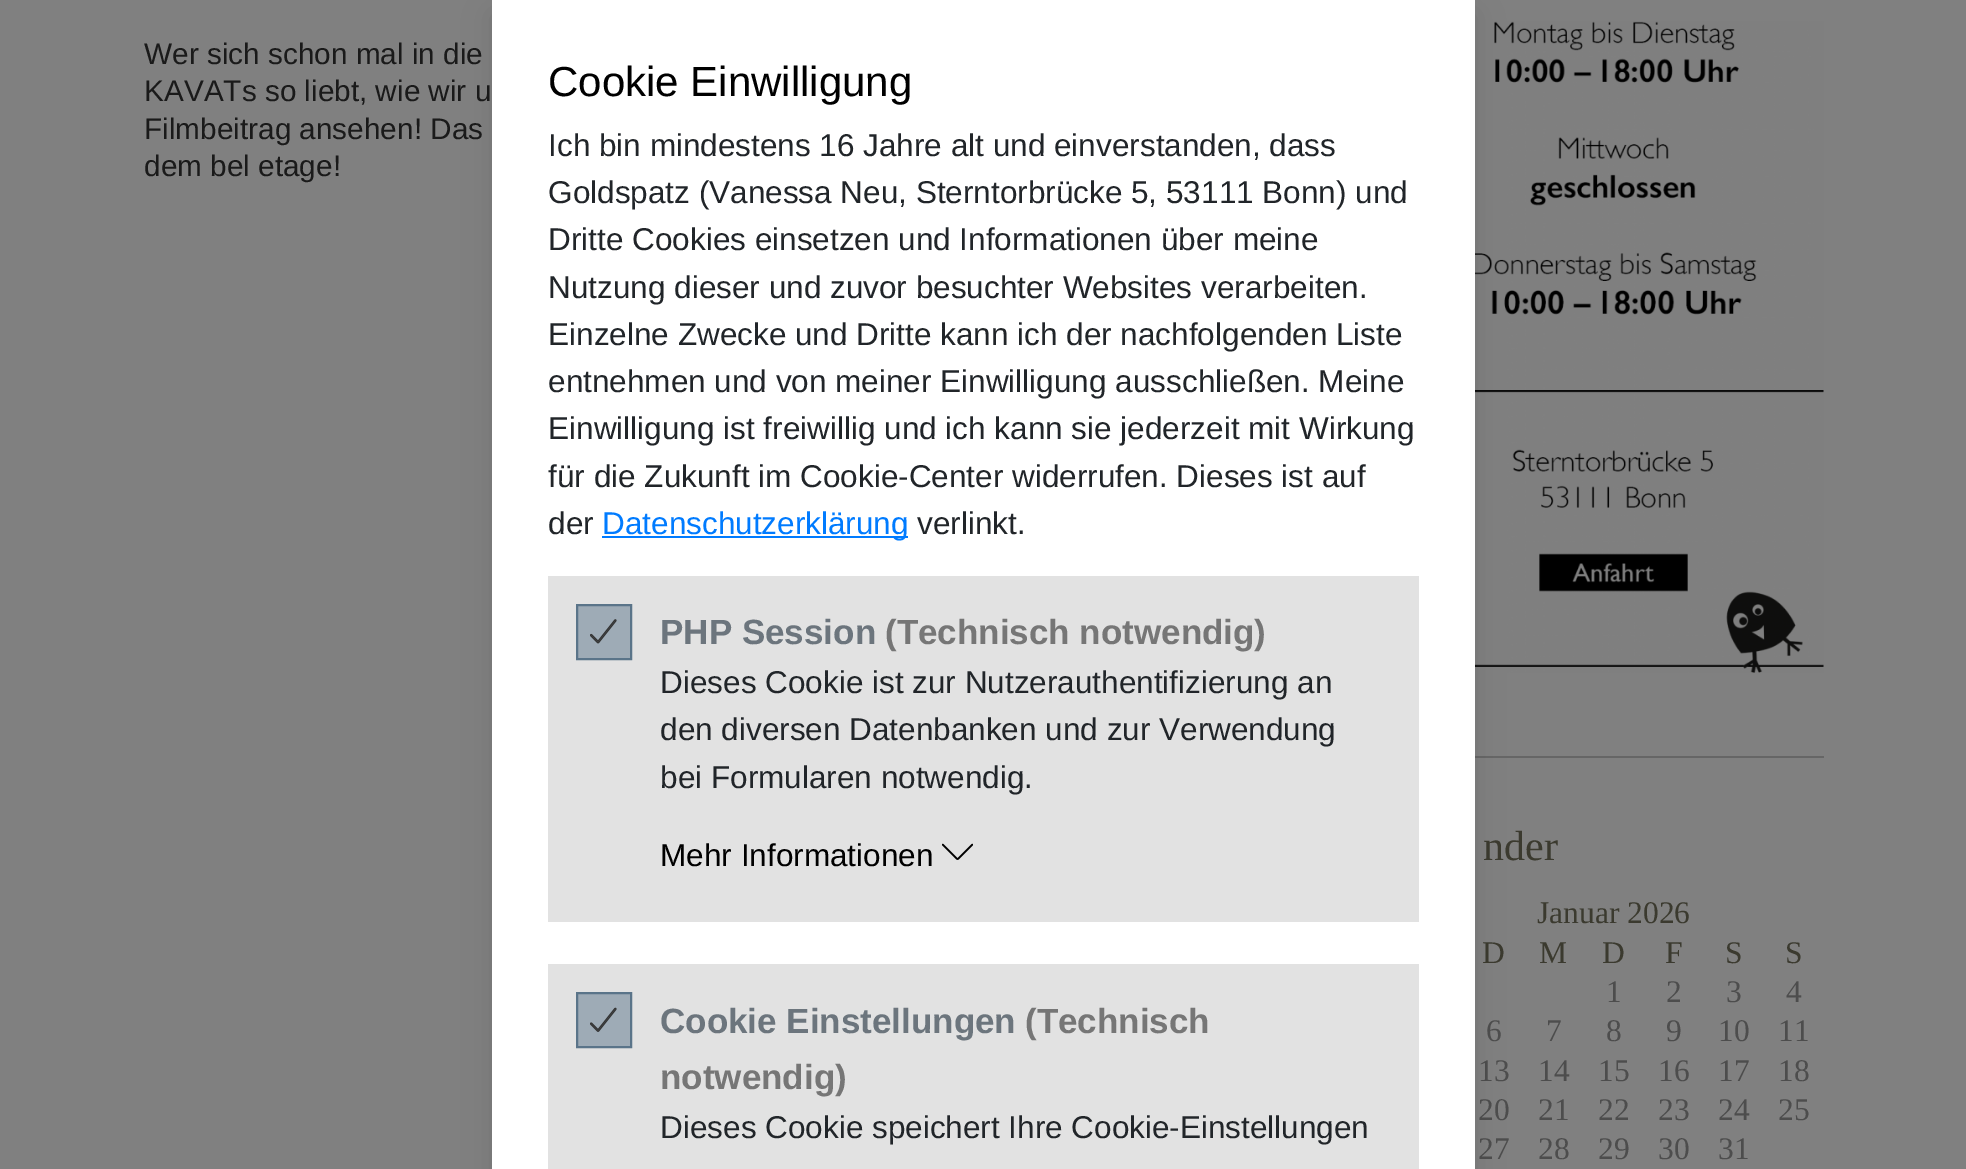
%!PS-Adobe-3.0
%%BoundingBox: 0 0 1966 1169
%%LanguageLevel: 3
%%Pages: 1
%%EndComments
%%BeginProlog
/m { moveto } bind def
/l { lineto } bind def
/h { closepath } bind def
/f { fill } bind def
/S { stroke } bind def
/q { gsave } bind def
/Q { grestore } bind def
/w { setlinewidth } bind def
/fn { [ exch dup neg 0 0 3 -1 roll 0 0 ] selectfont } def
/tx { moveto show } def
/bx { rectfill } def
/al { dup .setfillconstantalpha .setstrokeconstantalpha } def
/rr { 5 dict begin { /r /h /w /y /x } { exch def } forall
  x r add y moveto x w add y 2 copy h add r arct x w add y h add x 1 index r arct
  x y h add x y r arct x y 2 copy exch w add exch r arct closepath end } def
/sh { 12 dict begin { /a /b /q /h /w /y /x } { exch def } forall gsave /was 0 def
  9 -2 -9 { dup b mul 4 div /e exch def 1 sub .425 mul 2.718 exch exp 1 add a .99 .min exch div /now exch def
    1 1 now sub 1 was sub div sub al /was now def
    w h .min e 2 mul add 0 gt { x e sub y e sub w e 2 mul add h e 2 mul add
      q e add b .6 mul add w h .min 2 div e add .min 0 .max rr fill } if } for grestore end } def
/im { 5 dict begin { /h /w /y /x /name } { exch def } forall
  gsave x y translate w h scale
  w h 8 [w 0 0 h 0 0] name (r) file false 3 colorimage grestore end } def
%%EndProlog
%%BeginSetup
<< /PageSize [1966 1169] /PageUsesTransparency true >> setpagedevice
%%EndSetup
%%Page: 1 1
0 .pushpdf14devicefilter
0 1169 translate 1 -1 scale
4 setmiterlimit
0.502 setgray
0 0 1966 1169 bx
/LiberationSans-Regular 29.75 fn
0.102 setgray
(Wer sich schon mal in die) 144 64 tx
(KAVATs so liebt, wie wir u) 144 101 tx
(Filmbeitrag ansehen! Das) 144 139 tx
(dem bel etage!) 144 176 tx
0.4 setgray
1475 756 349 2 bx
(image0.raw) 1475 21 349 652 im
/LiberationSerif-Regular 42 fn
0.231 0.227 0.184 setrgbcolor
(nder) 1483 860 tx
/LiberationSerif-Regular 31.5 fn
(Januar 2026) 1537 923 tx
(D) 1482 963 tx
(M) 1539 963 tx
(D) 1602 963 tx
(F) 1665 963 tx
(S) 1725 963 tx
(S) 1785 963 tx
0.302 setgray
(1) 1606 1002 tx
(2) 1666 1002 tx
(3) 1726 1002 tx
(4) 1786 1002 tx
(6) 1486 1041 tx
(7) 1546 1041 tx
(8) 1606 1041 tx
(9) 1666 1041 tx
(10) 1718 1041 tx
(11) 1778 1041 tx
(13) 1478 1081 tx
(14) 1538 1081 tx
(15) 1598 1081 tx
(16) 1658 1081 tx
(17) 1718 1081 tx
(18) 1778 1081 tx
(20) 1478 1120 tx
(21) 1538 1120 tx
(22) 1598 1120 tx
(23) 1658 1120 tx
(24) 1718 1120 tx
(25) 1778 1120 tx
(27) 1478 1159 tx
(28) 1538 1159 tx
(29) 1598 1159 tx
(30) 1658 1159 tx
(31) 1718 1159 tx
0 setgray
492 14 983 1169 0 14 0.12 sh
1 setgray
492 0 983 1169 bx
/LiberationSans-Regular 42 fn
0 setgray
(Cookie Einwilligung) 548 96 tx
/LiberationSans-Regular 31.5 fn
0.129 0.145 0.161 setrgbcolor
(Ich bin mindestens 16 Jahre alt und einverstanden, dass) 548 156 tx
(Goldspatz \(Vanessa Neu, Sterntorbrücke 5, 53111 Bonn\) und) 548 203 tx
(Dritte Cookies einsetzen und Informationen über meine) 548 250 tx
(Nutzung dieser und zuvor besuchter Websites verarbeiten.) 548 298 tx
(Einzelne Zwecke und Dritte kann ich der nachfolgenden Liste) 548 345 tx
(entnehmen und von meiner Einwilligung ausschließen. Meine) 548 392 tx
(Einwilligung ist freiwillig und ich kann sie jederzeit mit Wirkung) 548 439 tx
(für die Zukunft im Cookie-Center widerrufen. Dieses ist auf) 548 487 tx
(der) 548 534 tx
0 0.482 1 setrgbcolor
602 536 306 2 bx
(Datenschutzerklärung) 602 534 tx
0.129 0.145 0.161 setrgbcolor
(verlinkt.) 917 534 tx
0.886 setgray
548 576 871 346 bx
0.62 0.671 0.714 setrgbcolor
577 605 m 631 605 l 631 659 l 577 659 l h q f Q
0.353 0.455 0.537 setrgbcolor
2 w
S
/LiberationSans-Bold 35 fn
0.424 0.459 0.49 setrgbcolor
(PHP Session) 660 644 tx
0.463 setgray
(\(Technisch notwendig\)) 885 644 tx
(image1.raw) 590 619 27 25 im
/LiberationSans-Regular 31.5 fn
0.129 0.145 0.161 setrgbcolor
(Dieses Cookie ist zur Nutzerauthentifizierung an) 660 693 tx
(den diversen Datenbanken und zur Verwendung) 660 740 tx
(bei Formularen notwendig.) 660 788 tx
0 setgray
(Mehr Informationen) 660 866 tx
(image2.raw) 942 843 31 17 im
0.886 setgray
548 964 871 205 bx
0.62 0.671 0.714 setrgbcolor
577 993 m 631 993 l 631 1047 l 577 1047 l h q f Q
0.353 0.455 0.537 setrgbcolor
S
(image3.raw) 590 1007 27 25 im
/LiberationSans-Bold 35 fn
0.424 0.459 0.49 setrgbcolor
(Cookie Einstellungen) 660 1033 tx
0.463 setgray
(\(Technisch) 1025 1033 tx
(notwendig\)) 660 1089 tx
/LiberationSans-Regular 31.5 fn
0.129 0.145 0.161 setrgbcolor
(Dieses Cookie speichert Ihre Cookie-Einstellungen) 660 1138 tx
.poppdf14devicefilter showpage
%%EOF
